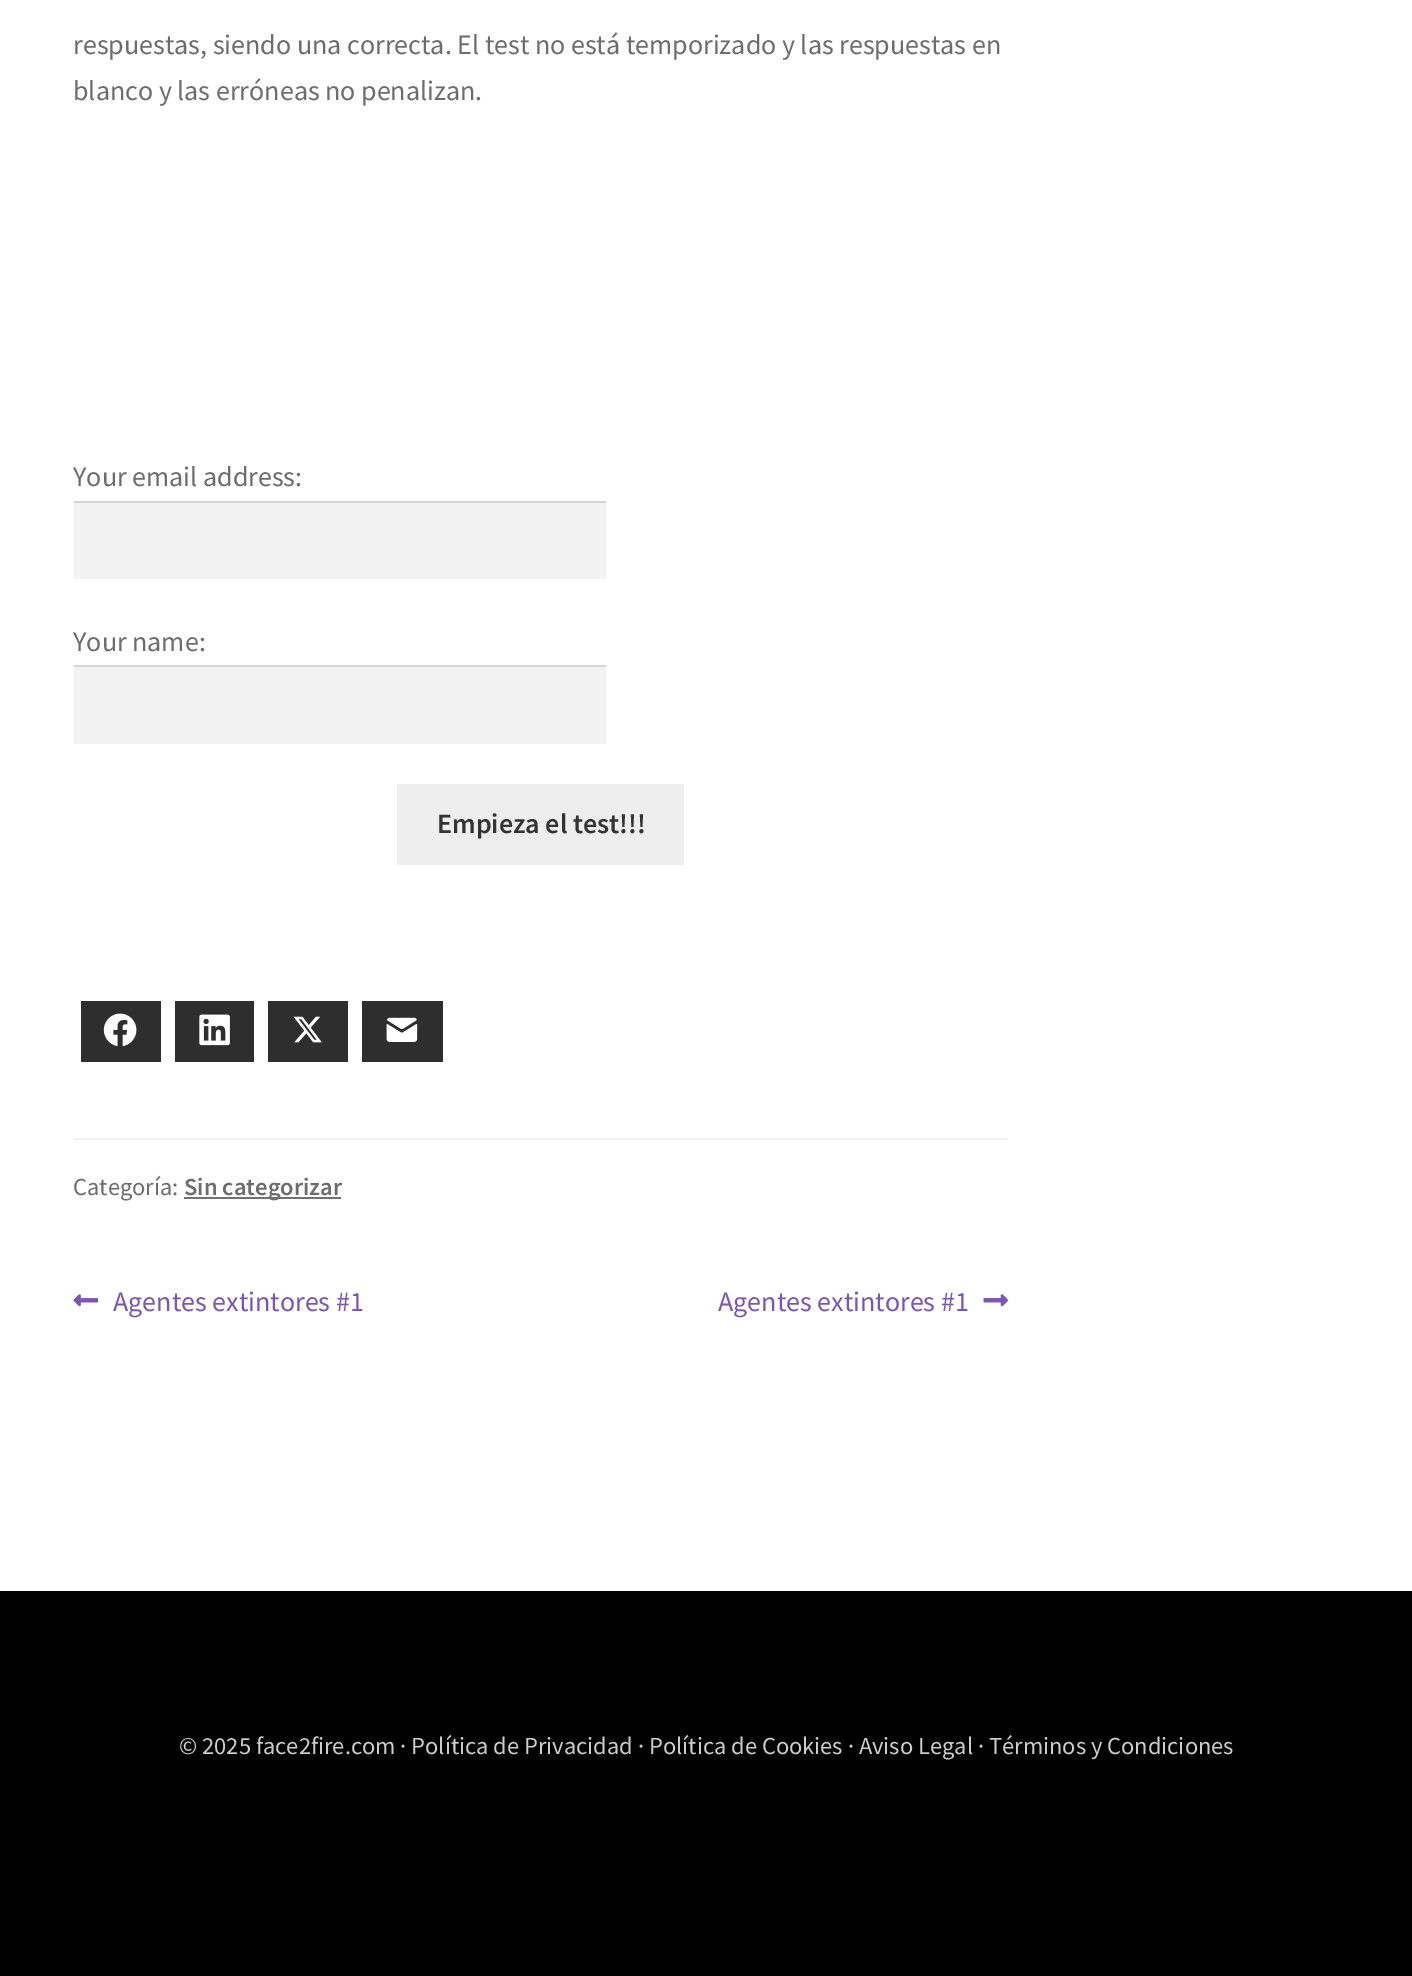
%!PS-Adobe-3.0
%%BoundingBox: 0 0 1412 1976
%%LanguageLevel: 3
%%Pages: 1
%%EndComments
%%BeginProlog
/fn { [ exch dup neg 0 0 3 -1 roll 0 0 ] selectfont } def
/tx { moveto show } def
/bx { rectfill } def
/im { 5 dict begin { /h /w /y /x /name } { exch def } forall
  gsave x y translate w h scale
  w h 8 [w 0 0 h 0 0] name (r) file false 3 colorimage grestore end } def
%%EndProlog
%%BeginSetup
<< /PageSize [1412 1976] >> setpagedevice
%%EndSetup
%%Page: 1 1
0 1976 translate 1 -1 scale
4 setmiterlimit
1 setgray
0 0 1412 1976 bx
/SourceSansPro-Regular 28 fn
0.427 setgray
(respuestas, siendo una correcta. El test no está temporizado y las respuestas en) 73 54 tx
(blanco y las erróneas no penalizan.) 73 100 tx
(Your email address:) 73 486 tx
0.949 setgray
74 503 532 76 bx
0.831 setgray
74 501 532 2 bx
0.427 setgray
(Your name:) 73 651 tx
0.949 setgray
74 667 532 77 bx
0.831 setgray
74 665 532 2 bx
0.933 setgray
397 784 287 81 bx
/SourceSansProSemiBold-SemiBold 28 fn
0.2 setgray
(Empieza el test!!!) 437 833 tx
0.18 setgray
81 1001 80 61 bx
(image0.raw) 103 1013 34 34 im
175 1001 79 61 bx
(image1.raw) 199 1014 31 32 im
268 1001 80 61 bx
(image2.raw) 293 1016 29 27 im
362 1001 81 61 bx
(image3.raw) 386 1017 32 25 im
0.949 setgray
74 1138 934 2 bx
/SourceSansPro-Regular 24.5 fn
0.427 setgray
(Categoría:) 73 1195 tx
0.447 setgray
184 1197 157 2 bx
/SourceSansProSemiBold-SemiBold 24.5 fn
0.427 setgray
(Sin categorizar) 184 1195 tx
(image4.raw) 73 1294 26 13 im
/SourceSansPro-Regular 28 fn
0.498 0.329 0.702 setrgbcolor
(Agentes extintores #1) 113 1311 tx
(Agentes extintores #1) 718 1311 tx
(image5.raw) 983 1294 25 13 im
0 setgray
0 1591 1412 385 bx
/SourceSansPro-Regular 24.5 fn
0.8 setgray
(© 2025 face2fire.com · Política de Privacidad · Política de Cookies · Aviso Legal · Términos y Condiciones) 179 1754 tx
showpage
%%EOF
